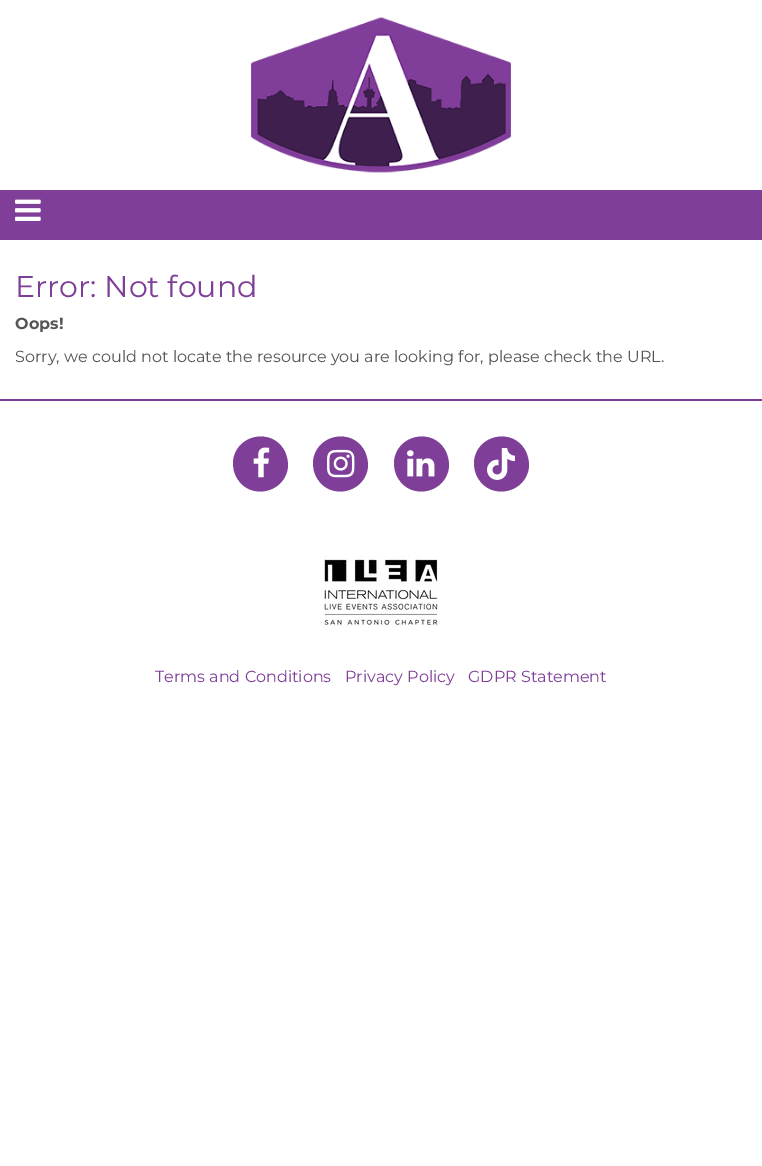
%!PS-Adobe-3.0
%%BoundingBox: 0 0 762 1166
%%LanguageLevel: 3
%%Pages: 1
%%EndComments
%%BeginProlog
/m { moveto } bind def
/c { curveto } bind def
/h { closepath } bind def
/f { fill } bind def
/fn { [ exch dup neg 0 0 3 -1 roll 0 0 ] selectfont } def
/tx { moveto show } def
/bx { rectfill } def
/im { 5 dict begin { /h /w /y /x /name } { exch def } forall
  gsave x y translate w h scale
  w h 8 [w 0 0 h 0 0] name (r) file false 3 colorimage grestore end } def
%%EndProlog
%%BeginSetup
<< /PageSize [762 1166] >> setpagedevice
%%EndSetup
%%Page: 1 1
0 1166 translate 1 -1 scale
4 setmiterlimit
1 setgray
0 0 762 1166 bx
(image0.raw) 251 17 260 156 im
0.498 0.247 0.596 setrgbcolor
0 190 762 50 bx
(image1.raw) 15 199 26 22 im
/Montserrat-Regular 30 fn
(Error: Not found) 15 297 tx
/Montserrat-Bold 16 fn
0.333 setgray
(Oops!) 15 329 tx
/Montserrat-Regular 16 fn
(Sorry, we could not locate the resource you are looking for, please check the URL.) 15 362 tx
0.498 0.247 0.596 setrgbcolor
0 399 762 2 bx
284 450 m 287 455 288 461 288 466 c 286 493 250 501 237 478 c 234 473 233 468 233 462 c 235 435 271 427 284 450 c h f
(image2.raw) 253 447 17 31 im
364 450 m 367 455 368 461 368 466 c 366 493 330 501 317 478 c 314 473 313 468 313 462 c 315 435 351 427 364 450 c h f
(image3.raw) 327 449 28 29 im
445 450 m 448 455 449 461 449 466 c 447 493 411 501 398 478 c 395 473 394 468 394 462 c 396 435 432 427 445 450 c h f
(image4.raw) 407 450 28 27 im
525 450 m 528 455 529 461 529 466 c 527 493 491 501 478 478 c 475 473 474 468 474 462 c 476 435 512 427 525 450 c h f
(image5.raw) 487 448 28 32 im
(image6.raw) 322 556 116 71 im
(Terms and Conditions) 155 682 tx
(Privacy Policy) 345 682 tx
(GDPR Statement) 468 682 tx
showpage
%%EOF
